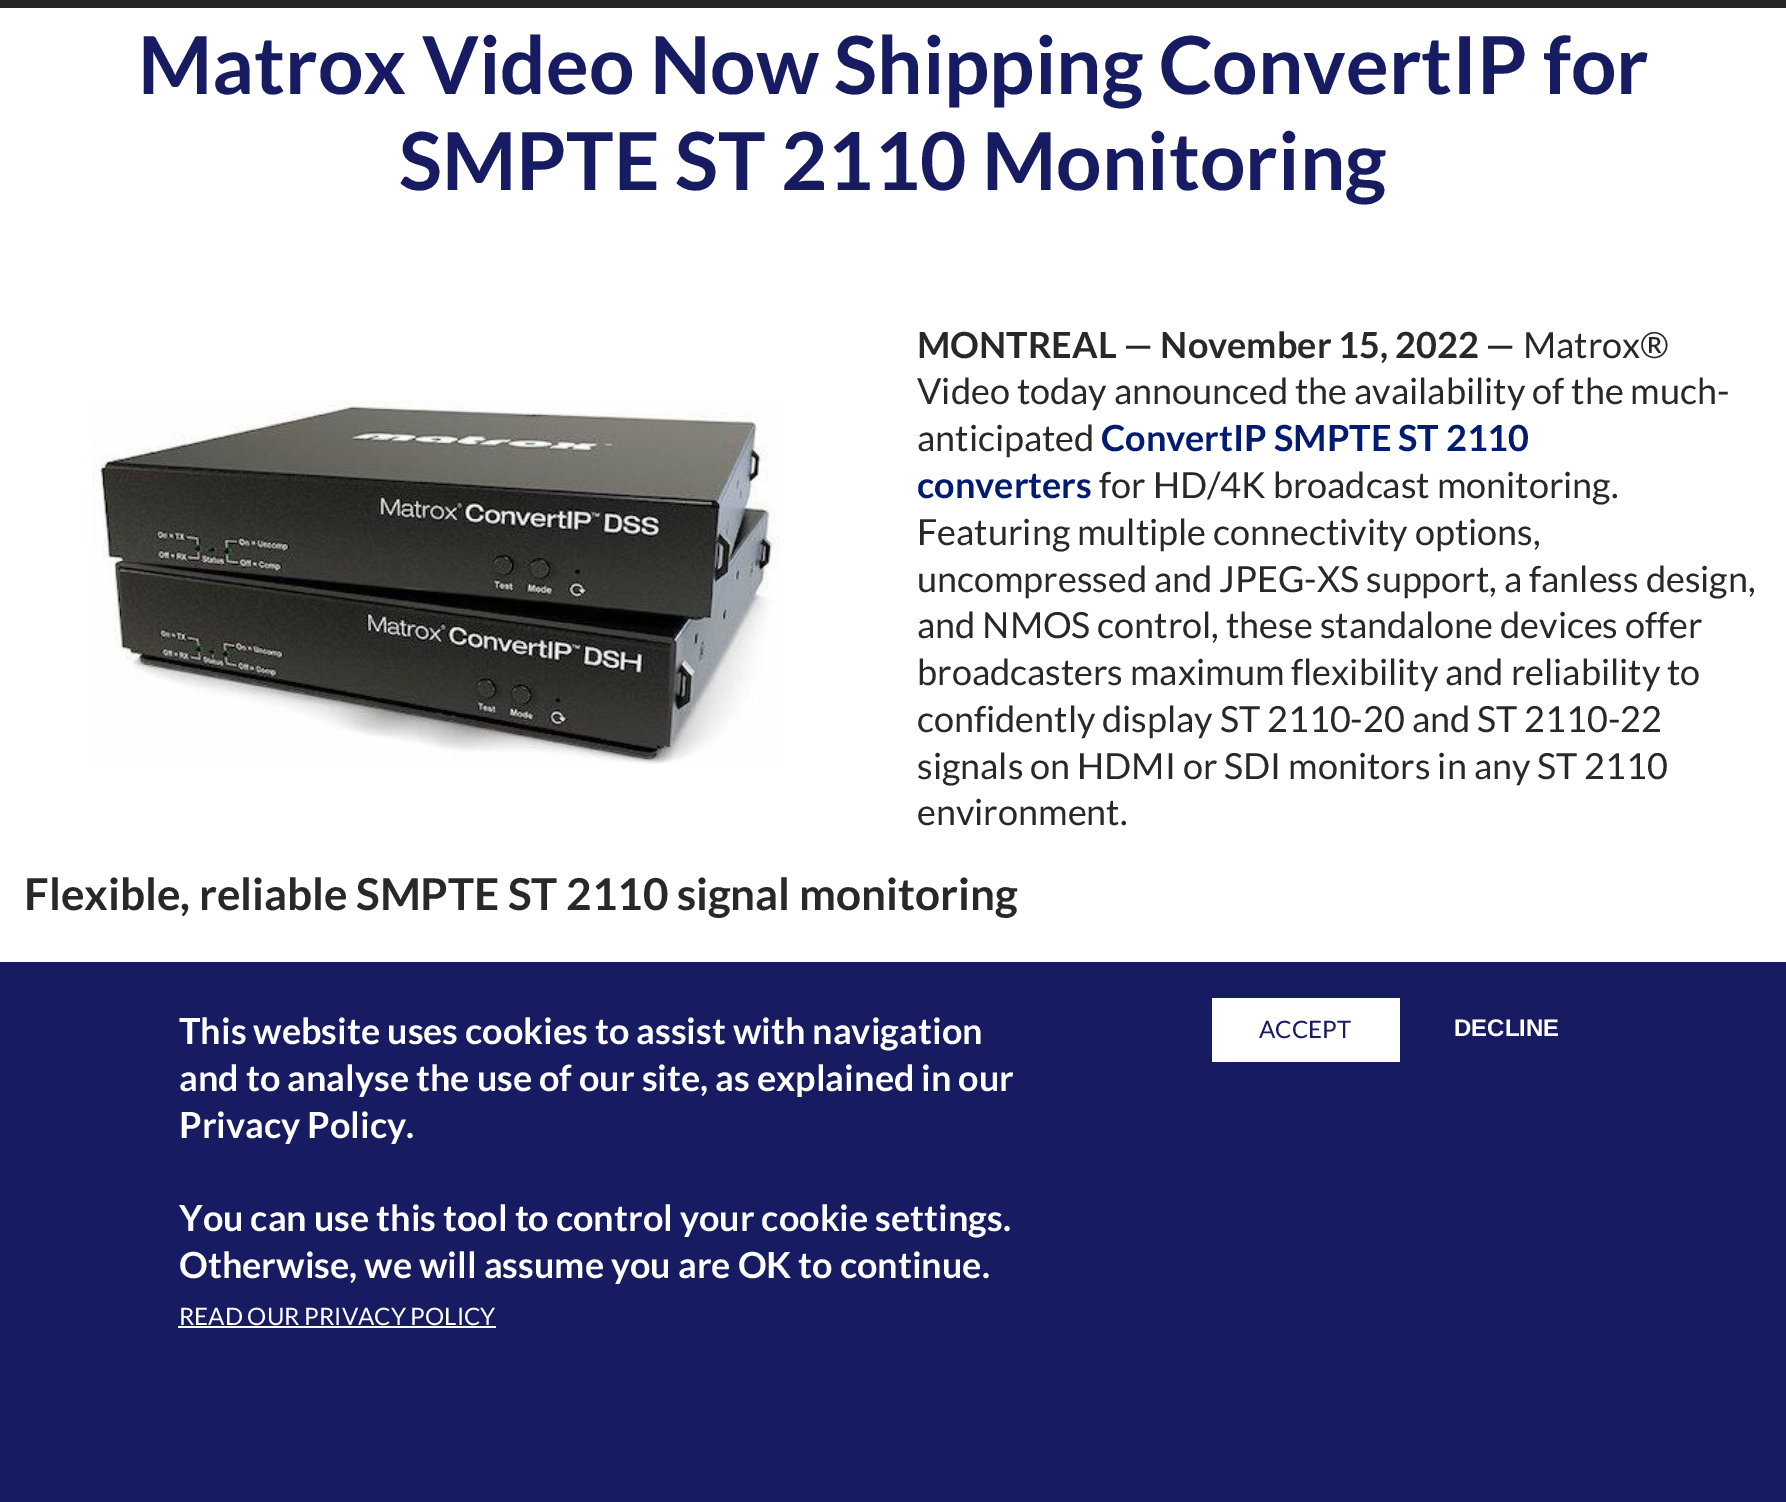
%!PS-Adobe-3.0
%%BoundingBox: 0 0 1786 1502
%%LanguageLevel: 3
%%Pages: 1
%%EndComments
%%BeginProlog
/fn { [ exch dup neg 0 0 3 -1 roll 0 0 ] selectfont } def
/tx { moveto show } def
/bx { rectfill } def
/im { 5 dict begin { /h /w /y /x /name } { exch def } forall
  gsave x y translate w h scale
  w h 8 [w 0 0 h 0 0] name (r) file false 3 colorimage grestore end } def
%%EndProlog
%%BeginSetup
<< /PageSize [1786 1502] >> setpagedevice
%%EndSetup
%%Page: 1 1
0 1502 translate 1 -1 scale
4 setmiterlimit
1 setgray
0 0 1786 1502 bx
0.149 setgray
0 0 1786 8 bx
/Lato-Bold 80 fn
0.09 0.106 0.38 setrgbcolor
(Matrox Video Now Shipping ConvertIP for) 138 94 tx
(SMPTE ST 2110 Monitoring) 399 190 tx
(image0.raw) 92 400 688 364 im
/Lato-Bold 36 fn
0.157 setgray
(MONTREAL — November 15, 2022 —) 917 358 tx
/Lato-Regular 36 fn
(Matrox®) 1523 358 tx
(Video today announced the availability of the much-) 917 404 tx
(anticipated) 917 451 tx
/Lato-Bold 36 fn
0 0.106 0.443 setrgbcolor
(ConvertIP SMPTE ST 2110) 1101 451 tx
(converters) 917 498 tx
/Lato-Regular 36 fn
0.157 setgray
(for HD/4K broadcast monitoring.) 1099 498 tx
(Featuring multiple connectivity options,) 917 545 tx
(uncompressed and JPEG-XS support, a fanless design,) 917 592 tx
(and NMOS control, these standalone devices offer) 917 638 tx
(broadcasters maximum flexibility and reliability to) 917 685 tx
(confidently display ST 2110-20 and ST 2110-22) 917 732 tx
(signals on HDMI or SDI monitors in any ST 2110) 917 779 tx
(environment.) 917 825 tx
/Lato-Bold 44 fn
(Flexible, reliable SMPTE ST 2110 signal monitoring) 24 910 tx
0.09 0.106 0.38 setrgbcolor
0 962 1786 540 bx
/Lato-Bold 36 fn
1 setgray
(This website uses cookies to assist with navigation) 179 1044 tx
(and to analyse the use of our site, as explained in our) 179 1091 tx
(Privacy Policy.) 179 1138 tx
(You can use this tool to control your cookie settings.) 179 1231 tx
(Otherwise, we will assume you are OK to continue.) 179 1278 tx
/Lato-Regular 24 fn
(READ OUR PRIVACY POLICY) 179 1325 tx
178 1326 318 2 bx
1212 998 188 64 bx
0.09 0.106 0.38 setrgbcolor
(ACCEPT) 1259 1038 tx
/LiberationSans-Bold 24 fn
1 setgray
(DECLINE) 1454 1036 tx
showpage
%%EOF
